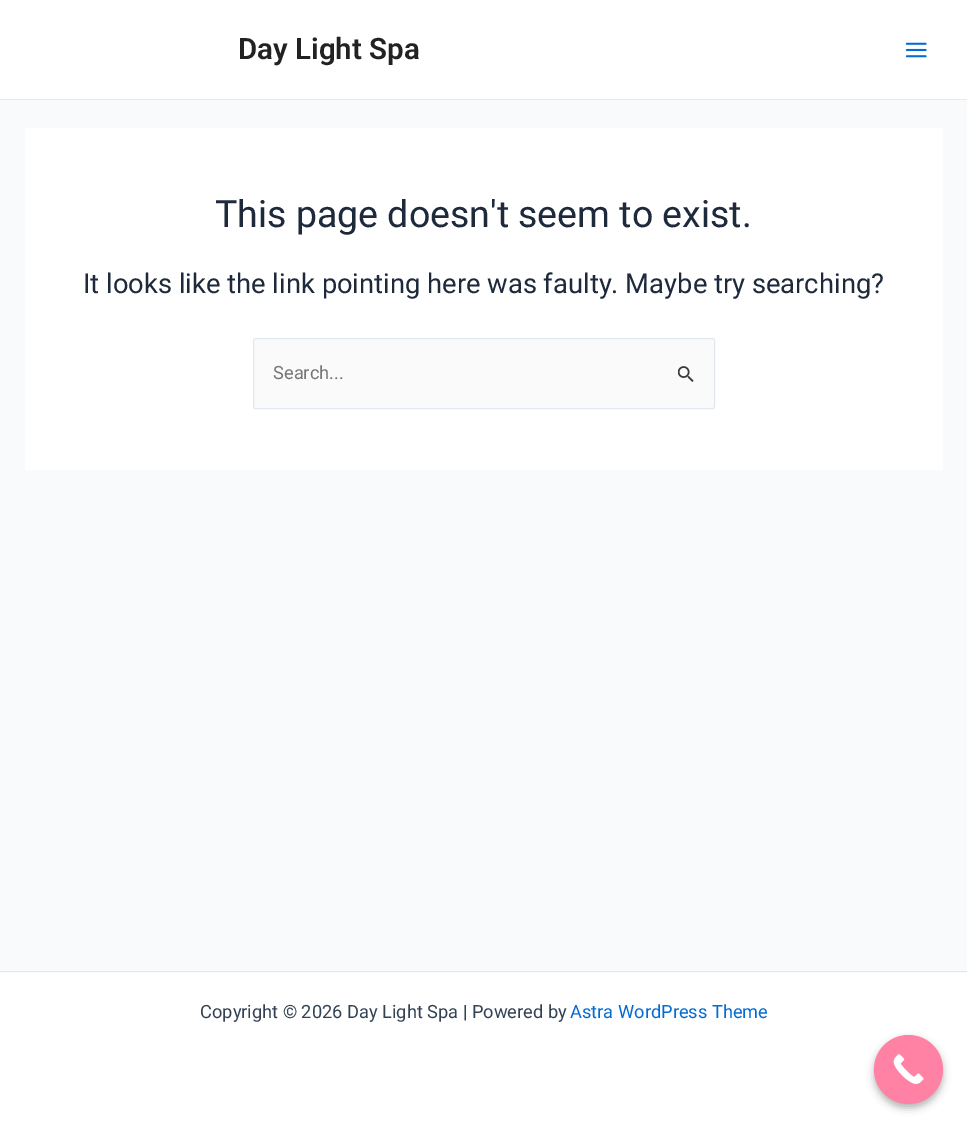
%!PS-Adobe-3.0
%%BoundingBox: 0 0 967 1122
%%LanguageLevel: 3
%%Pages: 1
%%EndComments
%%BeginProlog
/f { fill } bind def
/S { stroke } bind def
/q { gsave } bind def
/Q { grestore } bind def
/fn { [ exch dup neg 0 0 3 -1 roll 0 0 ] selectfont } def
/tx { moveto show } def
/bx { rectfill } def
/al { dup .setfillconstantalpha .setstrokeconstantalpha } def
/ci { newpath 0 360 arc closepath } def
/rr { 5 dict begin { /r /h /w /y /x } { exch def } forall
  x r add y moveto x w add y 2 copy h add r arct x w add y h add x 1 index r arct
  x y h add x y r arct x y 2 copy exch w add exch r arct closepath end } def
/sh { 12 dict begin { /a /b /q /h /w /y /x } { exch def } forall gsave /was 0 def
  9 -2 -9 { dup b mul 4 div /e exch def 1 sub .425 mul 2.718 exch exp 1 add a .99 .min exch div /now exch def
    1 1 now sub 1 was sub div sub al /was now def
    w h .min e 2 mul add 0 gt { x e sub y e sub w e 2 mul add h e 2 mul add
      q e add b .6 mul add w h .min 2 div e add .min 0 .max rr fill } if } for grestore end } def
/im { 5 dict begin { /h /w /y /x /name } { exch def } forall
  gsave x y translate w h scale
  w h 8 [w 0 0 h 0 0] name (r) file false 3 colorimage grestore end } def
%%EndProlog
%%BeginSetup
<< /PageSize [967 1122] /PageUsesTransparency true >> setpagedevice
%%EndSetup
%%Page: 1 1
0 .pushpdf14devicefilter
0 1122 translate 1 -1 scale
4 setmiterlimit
0.976 0.98 0.984 setrgbcolor
0 0 967 1122 bx
1 setgray
0 0 967 99 bx
0.918 setgray
0 99 967 1 bx
/Roboto-SemiBold 29.5 fn
0.133 setgray
(Day Light Spa) 238 59 tx
(image0.raw) 905 42 22 16 im
1 setgray
25 128 918 342 bx
/Roboto-Regular 37.5 fn
0.118 0.161 0.231 setrgbcolor
(This page doesn't seem to exist.) 215 227 tx
/Roboto-Regular 27.35 fn
(It looks like the link pointing here was faulty. Maybe try searching?) 83 293 tx
0.98 setgray
253.5 338.5 461 70 2 rr q f Q
0.886 0.91 0.941 setrgbcolor
S
/Roboto-Regular 18.25 fn
0.459 setgray
(Search...) 273 379 tx
(image1.raw) 678 366 16 16 im
1 setgray
0 973 967 149 bx
0.886 0.91 0.941 setrgbcolor
0 971 967 1 bx
0.2 0.255 0.333 setrgbcolor
(Copyright © 2026 Day Light Spa | Powered by) 200 1018 tx
0.016 0.42 0.824 setrgbcolor
(Astra WordPress Theme) 570 1018 tx
0 setgray
874 1039 69 69 34.5 4 0.3 sh
1 0.506 0.643 setrgbcolor
908.5 1069.5 34.5 ci f
(image2.raw) 893 1054 31 30 im
.poppdf14devicefilter showpage
%%EOF
